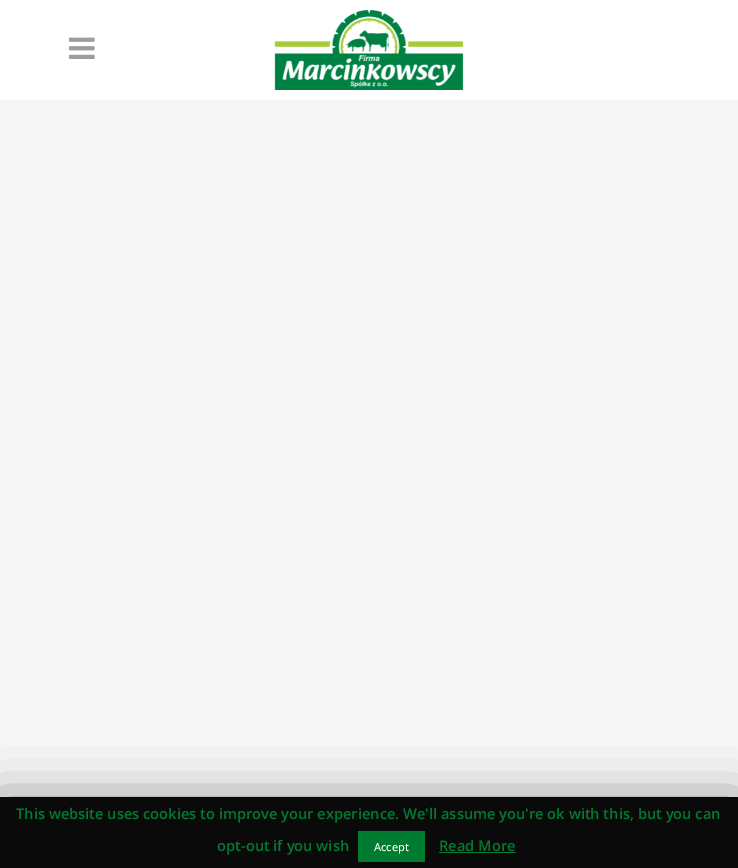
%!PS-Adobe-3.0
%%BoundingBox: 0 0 738 868
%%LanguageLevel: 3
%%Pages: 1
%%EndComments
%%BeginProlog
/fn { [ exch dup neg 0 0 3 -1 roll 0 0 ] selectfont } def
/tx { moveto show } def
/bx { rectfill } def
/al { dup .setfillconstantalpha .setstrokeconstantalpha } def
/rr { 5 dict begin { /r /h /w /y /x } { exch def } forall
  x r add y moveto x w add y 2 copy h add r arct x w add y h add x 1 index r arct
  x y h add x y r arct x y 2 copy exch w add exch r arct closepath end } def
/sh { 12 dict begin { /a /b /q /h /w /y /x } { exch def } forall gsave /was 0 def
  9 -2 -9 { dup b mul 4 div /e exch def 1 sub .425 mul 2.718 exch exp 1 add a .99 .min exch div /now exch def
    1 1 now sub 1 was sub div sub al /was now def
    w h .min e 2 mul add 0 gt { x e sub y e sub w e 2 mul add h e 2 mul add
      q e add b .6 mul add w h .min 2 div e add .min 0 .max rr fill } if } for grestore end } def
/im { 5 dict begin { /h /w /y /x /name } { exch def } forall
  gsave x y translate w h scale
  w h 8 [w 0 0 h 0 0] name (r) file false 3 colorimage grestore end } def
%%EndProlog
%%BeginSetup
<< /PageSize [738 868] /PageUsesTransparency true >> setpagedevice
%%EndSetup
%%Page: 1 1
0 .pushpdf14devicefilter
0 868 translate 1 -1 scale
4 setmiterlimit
0.965 setgray
0 0 738 868 bx
1 setgray
0 0 738 100 bx
(image0.raw) 69 37 26 22 im
(image1.raw) 274 10 190 80 im
0 setgray
0 802 738 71 0 25 0.5 sh
0.039 setgray
0 797 738 71 bx
/OpenSans-SemiBold 14.65 fn
0 0.486 0.188 setrgbcolor
(This website uses cookies to improve your experience. We'll assume you're ok with this, but you can) 16 819 tx
(opt-out if you wish) 217 851 tx
358 831 67 31 bx
/OpenSans-Medium 11 fn
1 setgray
(Accept) 374 851 tx
/OpenSans-SemiBold 14.65 fn
0 0.486 0.188 setrgbcolor
(Read More) 439 851 tx
439 852 77 1 bx
.poppdf14devicefilter showpage
%%EOF
